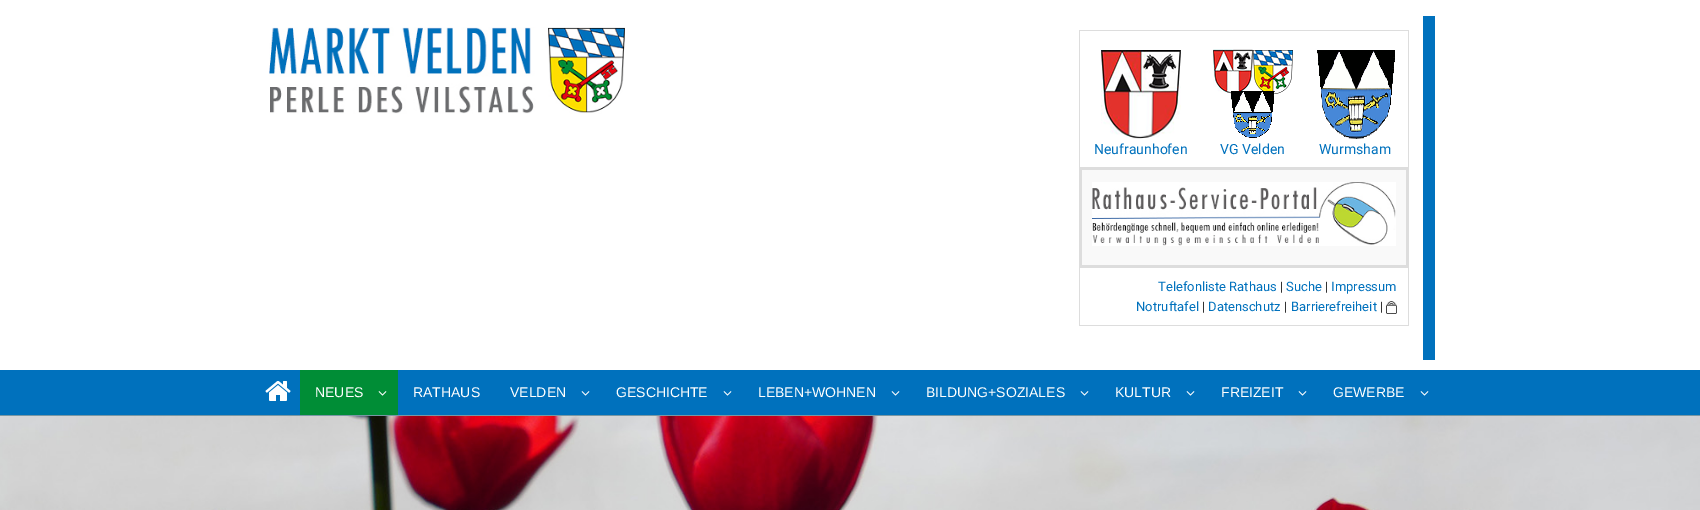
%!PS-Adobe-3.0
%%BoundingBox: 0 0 1700 510
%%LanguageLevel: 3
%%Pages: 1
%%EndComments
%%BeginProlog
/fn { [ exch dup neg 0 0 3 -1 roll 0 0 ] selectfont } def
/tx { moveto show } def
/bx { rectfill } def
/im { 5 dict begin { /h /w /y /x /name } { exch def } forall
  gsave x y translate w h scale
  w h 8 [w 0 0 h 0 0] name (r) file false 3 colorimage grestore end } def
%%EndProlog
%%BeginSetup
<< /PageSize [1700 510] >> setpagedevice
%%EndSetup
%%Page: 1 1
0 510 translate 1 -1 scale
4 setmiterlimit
1 setgray
0 0 1700 510 bx
(image0.raw) 269 27 356 87 im
0 0.443 0.741 setrgbcolor
1423 16 12 344 bx
0.867 setgray
1079 30 330 1 bx
1408 30 1 296 bx
1079 325 330 1 bx
1079 30 1 296 bx
(image1.raw) 1101 50 80 89 im
/Roboto-Regular 14 fn
0 0.443 0.741 setrgbcolor
(Neufraunhofen) 1094 154 tx
(image2.raw) 1213 49 80 89 im
(VG Velden) 1220 154 tx
(image3.raw) 1317 50 78 89 im
(Wurmsham) 1319 154 tx
0.976 setgray
1082 170 324 95 bx
0.867 setgray
1079 167 330 3 bx
1406 167 2 101 bx
1079 265 330 3 bx
1080 167 2 101 bx
(image4.raw) 1092 182 304 64 im
/Roboto-Regular 13 fn
0 0.443 0.741 setrgbcolor
(Telefonliste Rathaus) 1158 291 tx
0.2 setgray
(|) 1280 291 tx
0 0.443 0.741 setrgbcolor
(Suche) 1286 291 tx
0.2 setgray
(|) 1325 291 tx
0 0.443 0.741 setrgbcolor
(Impressum) 1331 291 tx
(Notruftafel) 1136 311 tx
0.2 setgray
(|) 1202 311 tx
0 0.443 0.741 setrgbcolor
(Datenschutz) 1208 311 tx
0.2 setgray
(|) 1284 311 tx
0 0.443 0.741 setrgbcolor
(Barrierefreiheit) 1291 311 tx
0.2 setgray
(|) 1380 311 tx
(image5.raw) 1386 301 11 13 im
0 0.443 0.741 setrgbcolor
0 370 1700 45 bx
0.471 0.592 0.643 setrgbcolor
0 415 1700 1 bx
(image6.raw) 265 381 26 20 im
0 0.553 0.212 setrgbcolor
300 370 98 45 bx
/LiberationSans-Regular 14 fn
1 setgray
(NEUES) 315 397 tx
(image7.raw) 378 391 9 5 im
(RATHAUS) 413 397 tx
(VELDEN) 510 397 tx
(image8.raw) 581 391 9 5 im
(GESCHICHTE) 616 397 tx
(image8.raw) 723 391 9 5 im
(LEBEN+WOHNEN) 758 397 tx
(image8.raw) 891 391 9 5 im
(BILDUNG+SOZIALES) 926 397 tx
(image8.raw) 1080 391 9 5 im
(KULTUR) 1115 397 tx
(image8.raw) 1186 391 9 5 im
(FREIZEIT) 1221 397 tx
(image8.raw) 1298 391 9 5 im
(GEWERBE) 1333 397 tx
(image8.raw) 1420 391 9 5 im
(image9.raw) 0 416 1700 94 im
showpage
%%EOF
